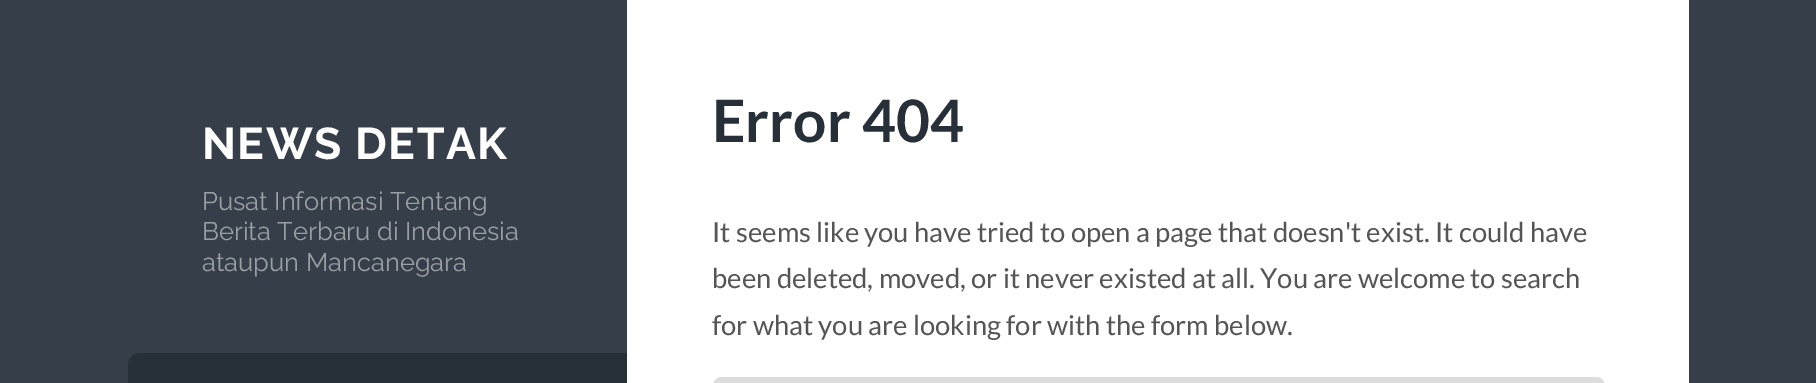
%!PS-Adobe-3.0
%%BoundingBox: 0 0 1816 383
%%LanguageLevel: 3
%%Pages: 1
%%EndComments
%%BeginProlog
/m { moveto } bind def
/l { lineto } bind def
/c { curveto } bind def
/h { closepath } bind def
/f { fill } bind def
/fn { [ exch dup neg 0 0 3 -1 roll 0 0 ] selectfont } def
/tx { moveto show } def
/bx { rectfill } def
/rr { 5 dict begin { /r /h /w /y /x } { exch def } forall
  x r add y moveto x w add y 2 copy h add r arct x w add y h add x 1 index r arct
  x y h add x y r arct x y 2 copy exch w add exch r arct closepath end } def
%%EndProlog
%%BeginSetup
<< /PageSize [1816 383] >> setpagedevice
%%EndSetup
%%Page: 1 1
0 383 translate 1 -1 scale
4 setmiterlimit
0.208 0.243 0.286 setrgbcolor
0 0 1816 383 bx
/Raleway-Thin 44.5 fn
1 setgray
202 159 m 1.5 0 (NEWS DETAK) ashow
/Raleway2-Thin 25.5 fn
0.604 0.624 0.643 setrgbcolor
(Pusat Informasi Tentang) 202 210 tx
(Berita Terbaru di Indonesia) 202 240 tx
(ataupun Mancanegara) 202 271 tx
0.153 0.184 0.22 setrgbcolor
140 353 m 627 353 l 627 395 l 140 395 l 133.5 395 128 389.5 128 383 c 128 365 l 128 358.5 133.5 353 140 353 c h f
1 setgray
627 0 1062 383 bx
/Lato-Bold 58.5 fn
0.153 0.184 0.22 setrgbcolor
(Error 404) 712 142 tx
/Lato-Regular 27.4 fn
0.333 setgray
(It seems like you have tried to open a page that doesn't exist. It could have) 712 242 tx
(been deleted, moved, or it never existed at all. You are welcome to search) 712 288 tx
(for what you are looking for with the form below.) 712 335 tx
0.867 setgray
713 377 892 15 9 rr f
showpage
%%EOF
